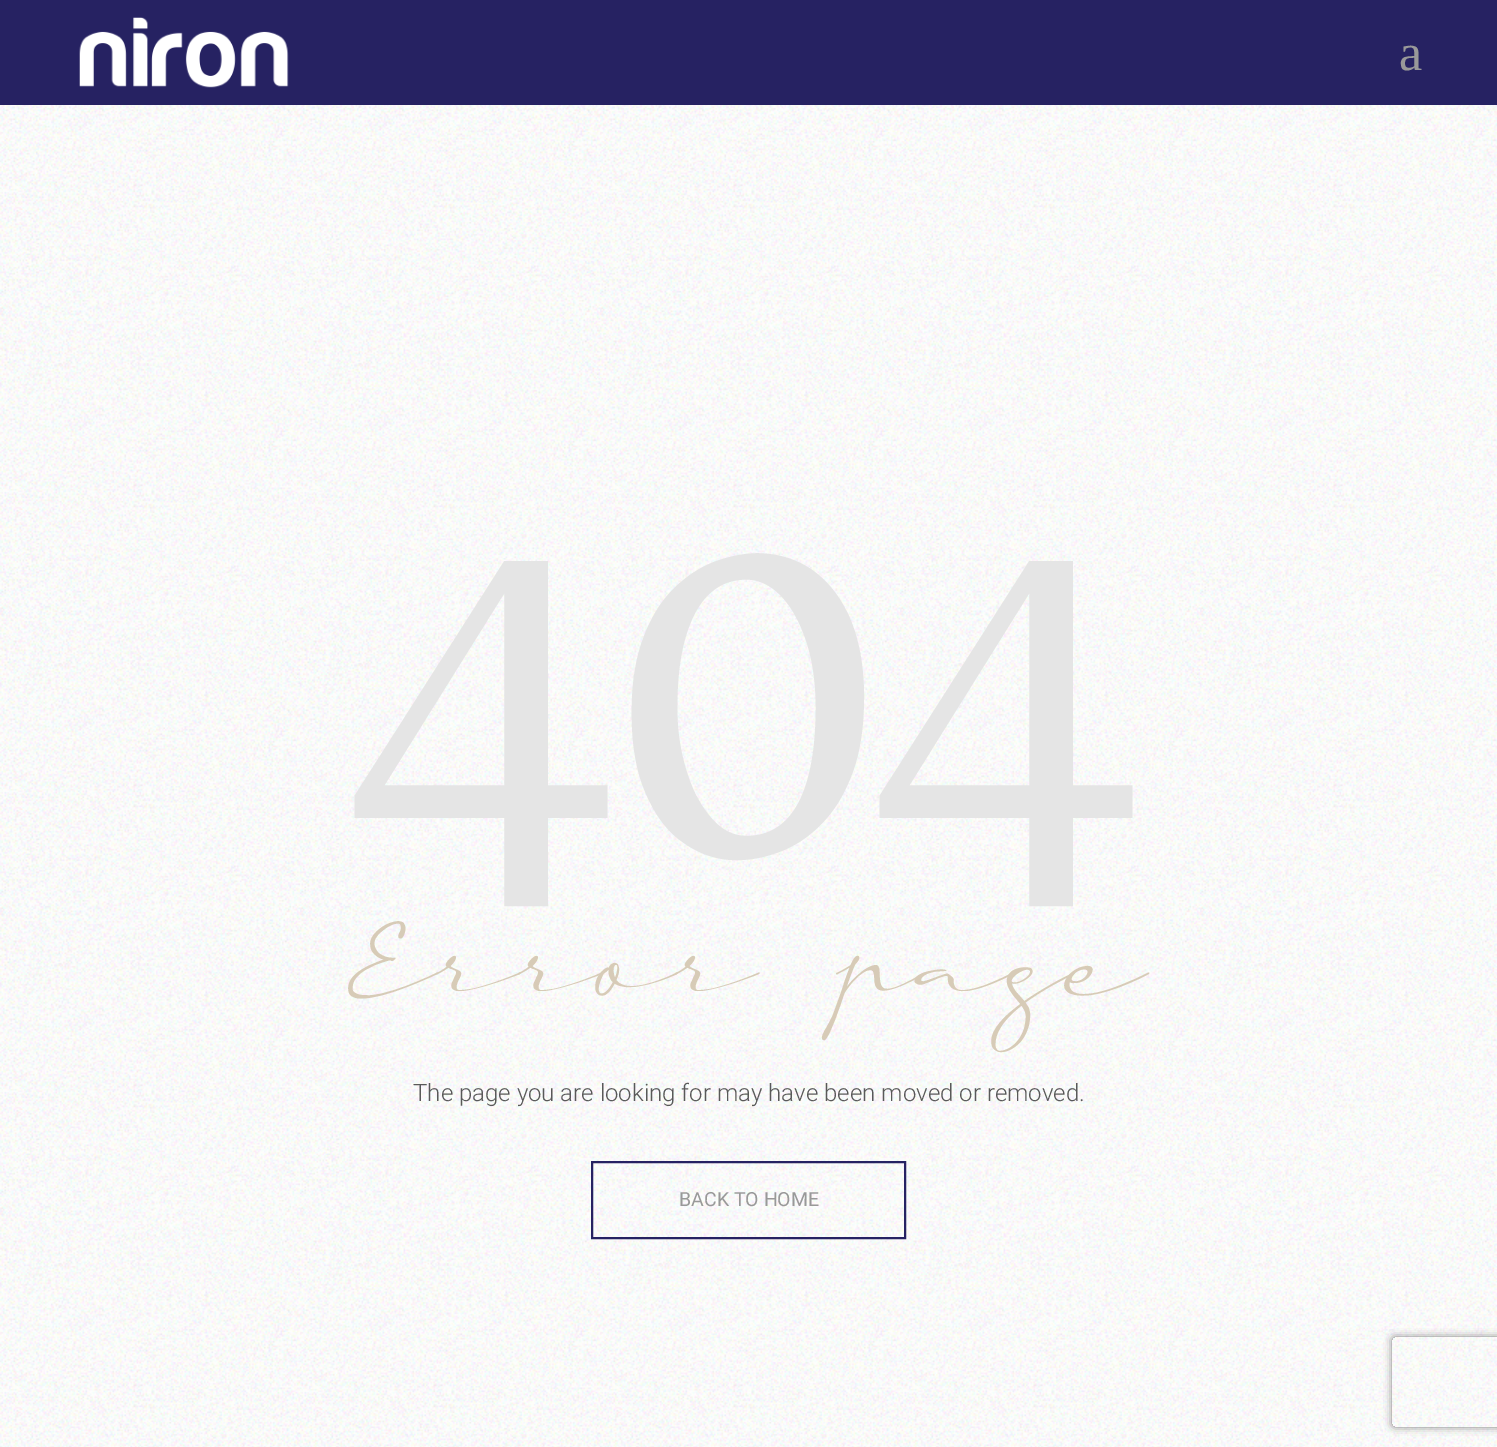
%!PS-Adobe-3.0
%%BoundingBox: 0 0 1497 1447
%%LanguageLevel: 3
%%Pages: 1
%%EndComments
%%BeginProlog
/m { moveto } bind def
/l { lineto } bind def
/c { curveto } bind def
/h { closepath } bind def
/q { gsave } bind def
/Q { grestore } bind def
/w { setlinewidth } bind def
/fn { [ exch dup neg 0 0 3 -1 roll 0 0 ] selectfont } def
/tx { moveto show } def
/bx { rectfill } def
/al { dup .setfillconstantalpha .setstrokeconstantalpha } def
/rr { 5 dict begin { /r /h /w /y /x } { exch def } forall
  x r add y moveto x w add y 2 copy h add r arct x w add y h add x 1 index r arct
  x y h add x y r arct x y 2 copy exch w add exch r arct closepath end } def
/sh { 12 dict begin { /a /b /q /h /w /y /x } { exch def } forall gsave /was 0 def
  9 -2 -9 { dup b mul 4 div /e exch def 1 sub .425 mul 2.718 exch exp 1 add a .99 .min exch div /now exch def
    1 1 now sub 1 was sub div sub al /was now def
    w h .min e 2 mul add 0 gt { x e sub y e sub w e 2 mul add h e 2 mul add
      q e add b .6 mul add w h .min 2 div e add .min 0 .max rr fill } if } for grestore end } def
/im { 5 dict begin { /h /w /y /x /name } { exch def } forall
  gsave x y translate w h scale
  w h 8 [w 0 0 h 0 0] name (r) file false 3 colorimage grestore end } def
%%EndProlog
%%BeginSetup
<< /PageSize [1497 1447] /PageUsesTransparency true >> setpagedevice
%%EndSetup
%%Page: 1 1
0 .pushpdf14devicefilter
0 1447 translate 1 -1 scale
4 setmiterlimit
1 setgray
0 0 1497 1447 bx
(image0.raw) 0 105 1497 1342 im
0.149 0.133 0.384 setrgbcolor
0 0 1497 105 bx
(image1.raw) 79 17 210 71 im
/LiberationSerif-Regular 52 fn
0.6 setgray
(a) 1399 70 tx
/Belleza-Regular 525 fn
0.898 setgray
(404) 355 854 tx
/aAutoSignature-Regular 135 fn
0.843 0.796 0.718 setrgbcolor
(Error page) 350 992 tx
/Roboto-Light 24 fn
0.349 setgray
(The page you are looking for may have been moved or removed.) 413 1101 tx
0.149 0.133 0.384 setrgbcolor
2 w
592 1162 313 76 rectstroke
/Roboto-Regular 19.5 fn
0.6 setgray
(BACK TO HOME) 679 1206 tx
q
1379 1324 m 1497 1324 l 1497 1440 l 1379 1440 l h 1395 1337 m 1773 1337 l 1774.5 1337 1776 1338.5 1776 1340 c 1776 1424 l 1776 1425.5 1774.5 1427 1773 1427 c 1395 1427 l 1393.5 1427 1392 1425.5 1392 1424 c 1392 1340 l 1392 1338.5 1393.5 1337 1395 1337 c h eoclip newpath
0.502 setgray
1392 1337 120 90 3 4 1 sh
Q
.poppdf14devicefilter showpage
%%EOF
